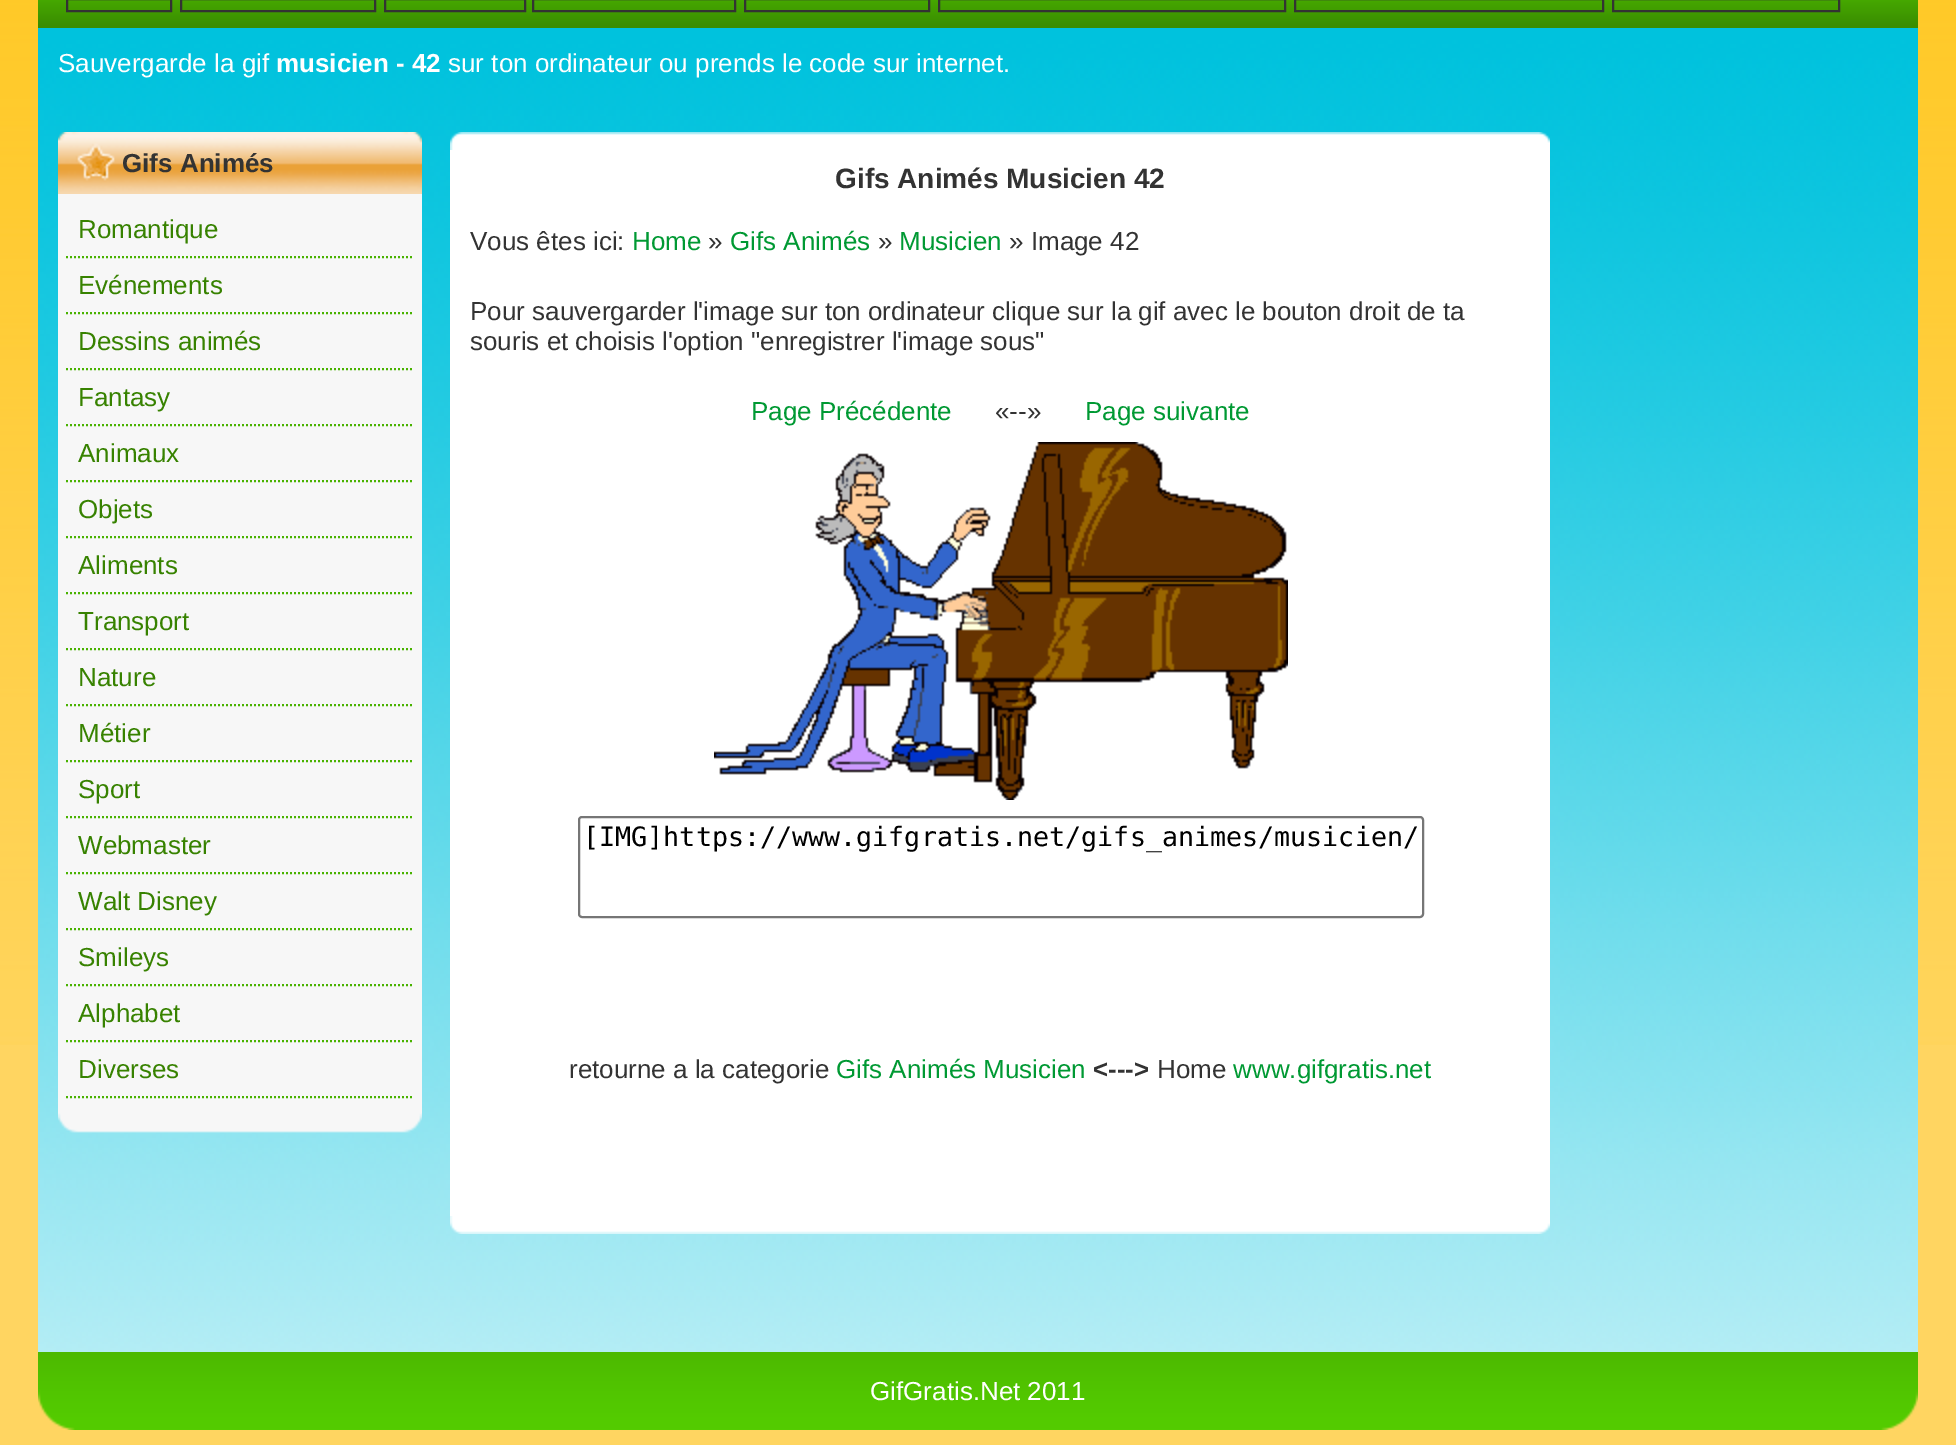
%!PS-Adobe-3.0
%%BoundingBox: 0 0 1956 1445
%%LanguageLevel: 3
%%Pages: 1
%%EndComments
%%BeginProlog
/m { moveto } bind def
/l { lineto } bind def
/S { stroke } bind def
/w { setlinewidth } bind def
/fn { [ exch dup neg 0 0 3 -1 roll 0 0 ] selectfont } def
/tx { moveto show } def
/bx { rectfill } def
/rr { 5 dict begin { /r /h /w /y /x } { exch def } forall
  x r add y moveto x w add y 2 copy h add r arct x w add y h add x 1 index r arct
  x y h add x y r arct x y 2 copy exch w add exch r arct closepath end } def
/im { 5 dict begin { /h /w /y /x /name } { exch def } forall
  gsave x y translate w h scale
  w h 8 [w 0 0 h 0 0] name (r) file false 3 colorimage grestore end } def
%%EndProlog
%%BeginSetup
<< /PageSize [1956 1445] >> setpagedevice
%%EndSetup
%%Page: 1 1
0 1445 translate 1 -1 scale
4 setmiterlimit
1 0.835 0.38 setrgbcolor
0 0 1956 1445 bx
(image0.raw) 0 0 1956 1045 im
(image1.raw) 38 0 1880 28 im
0.2 setgray
2 w
67 -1 104 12 rectstroke
181 -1 194 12 rectstroke
385 -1 140 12 rectstroke
533 -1 202 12 rectstroke
745 -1 184 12 rectstroke
939 -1 346 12 rectstroke
1295 -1 308 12 rectstroke
1613 -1 226 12 rectstroke
(image2.raw) 38 28 1880 1324 im
/LiberationSans-Regular 26 fn
1 setgray
(Sauvergarde la gif) 58 72 tx
/LiberationSans-Bold 26 fn
(musicien - 42) 276 72 tx
/LiberationSans-Regular 26 fn
(sur ton ordinateur ou prends le code sur internet.) 448 72 tx
(image3.raw) 58 132 364 62 im
/LiberationSans-Bold 26 fn
0.2 setgray
(Gifs Animés) 122 172 tx
0.969 setgray
58 194 364 912 bx
0.286 0.698 0 setrgbcolor
[2 2] 0 setdash
66 257 m 414 257 l S
/LiberationSans-Regular 26 fn
0.216 0.51 0 setrgbcolor
(Romantique) 78 238 tx
0.286 0.698 0 setrgbcolor
66 313 m 414 313 l S
0.216 0.51 0 setrgbcolor
(Evénements) 78 294 tx
0.286 0.698 0 setrgbcolor
66 369 m 414 369 l S
0.216 0.51 0 setrgbcolor
(Dessins animés) 78 350 tx
0.286 0.698 0 setrgbcolor
66 425 m 414 425 l S
0.216 0.51 0 setrgbcolor
(Fantasy) 78 406 tx
0.286 0.698 0 setrgbcolor
66 481 m 414 481 l S
0.216 0.51 0 setrgbcolor
(Animaux) 78 462 tx
0.286 0.698 0 setrgbcolor
66 537 m 414 537 l S
0.216 0.51 0 setrgbcolor
(Objets) 78 518 tx
0.286 0.698 0 setrgbcolor
66 593 m 414 593 l S
0.216 0.51 0 setrgbcolor
(Aliments) 78 574 tx
0.286 0.698 0 setrgbcolor
66 649 m 414 649 l S
0.216 0.51 0 setrgbcolor
(Transport) 78 630 tx
0.286 0.698 0 setrgbcolor
66 705 m 414 705 l S
0.216 0.51 0 setrgbcolor
(Nature) 78 686 tx
0.286 0.698 0 setrgbcolor
66 761 m 414 761 l S
0.216 0.51 0 setrgbcolor
(Métier) 78 742 tx
0.286 0.698 0 setrgbcolor
66 817 m 414 817 l S
0.216 0.51 0 setrgbcolor
(Sport) 78 798 tx
0.286 0.698 0 setrgbcolor
66 873 m 414 873 l S
0.216 0.51 0 setrgbcolor
(Webmaster) 78 854 tx
0.286 0.698 0 setrgbcolor
66 929 m 414 929 l S
0.216 0.51 0 setrgbcolor
(Walt Disney) 78 910 tx
0.286 0.698 0 setrgbcolor
66 985 m 414 985 l S
0.216 0.51 0 setrgbcolor
(Smileys) 78 966 tx
0.286 0.698 0 setrgbcolor
66 1041 m 414 1041 l S
0.216 0.51 0 setrgbcolor
(Alphabet) 78 1022 tx
0.286 0.698 0 setrgbcolor
66 1097 m 414 1097 l S
0.216 0.51 0 setrgbcolor
(Diverses) 78 1078 tx
(image4.raw) 58 1106 364 27 im
(image5.raw) 450 132 1100 18 im
1 setgray
450 150 1100 1066 bx
/LiberationSans-Bold 28 fn
0.2 setgray
(Gifs Animés Musicien 42) 835 188 tx
/LiberationSans-Regular 26 fn
(Vous êtes ici:) 470 250 tx
0 0.6 0.2 setrgbcolor
(Home) 632 250 tx
0.2 setgray
(») 708 250 tx
0 0.6 0.2 setrgbcolor
(Gifs Animés) 730 250 tx
0.2 setgray
(») 878 250 tx
0 0.6 0.2 setrgbcolor
(Musicien) 899 250 tx
0.2 setgray
(» Image 42) 1009 250 tx
(Pour sauvergarder l'image sur ton ordinateur clique sur la gif avec le bouton droit de ta) 470 320 tx
(souris et choisis l'option "enregistrer l'image sous") 470 350 tx
0 0.6 0.2 setrgbcolor
(Page Précédente) 751 420 tx
0.2 setgray
(«--») 995 420 tx
0 0.6 0.2 setrgbcolor
(Page suivante) 1085 420 tx
(image6.raw) 714 442 574 358 im
0.463 setgray
[] 0 setdash
579 817 844 100 3 rr S
/DejaVuSansMono-Regular 26.7 fn
0 setgray
([IMG]https://www.gifgratis.net/gifs_animes/musicien/) 583 846 tx
/LiberationSans-Regular 26 fn
0.2 setgray
(retourne a la categorie) 569 1078 tx
0 0.6 0.2 setrgbcolor
(Gifs Animés Musicien) 836 1078 tx
/LiberationSans-Bold 26 fn
0.2 setgray
(<--->) 1093 1078 tx
/LiberationSans-Regular 26 fn
(Home) 1157 1078 tx
0 0.6 0.2 setrgbcolor
(www.gifgratis.net) 1233 1078 tx
(image7.raw) 450 1216 1100 18 im
(image8.raw) 38 1352 1880 78 im
1 setgray
(GifGratis.Net 2011) 870 1400 tx
showpage
%%EOF
